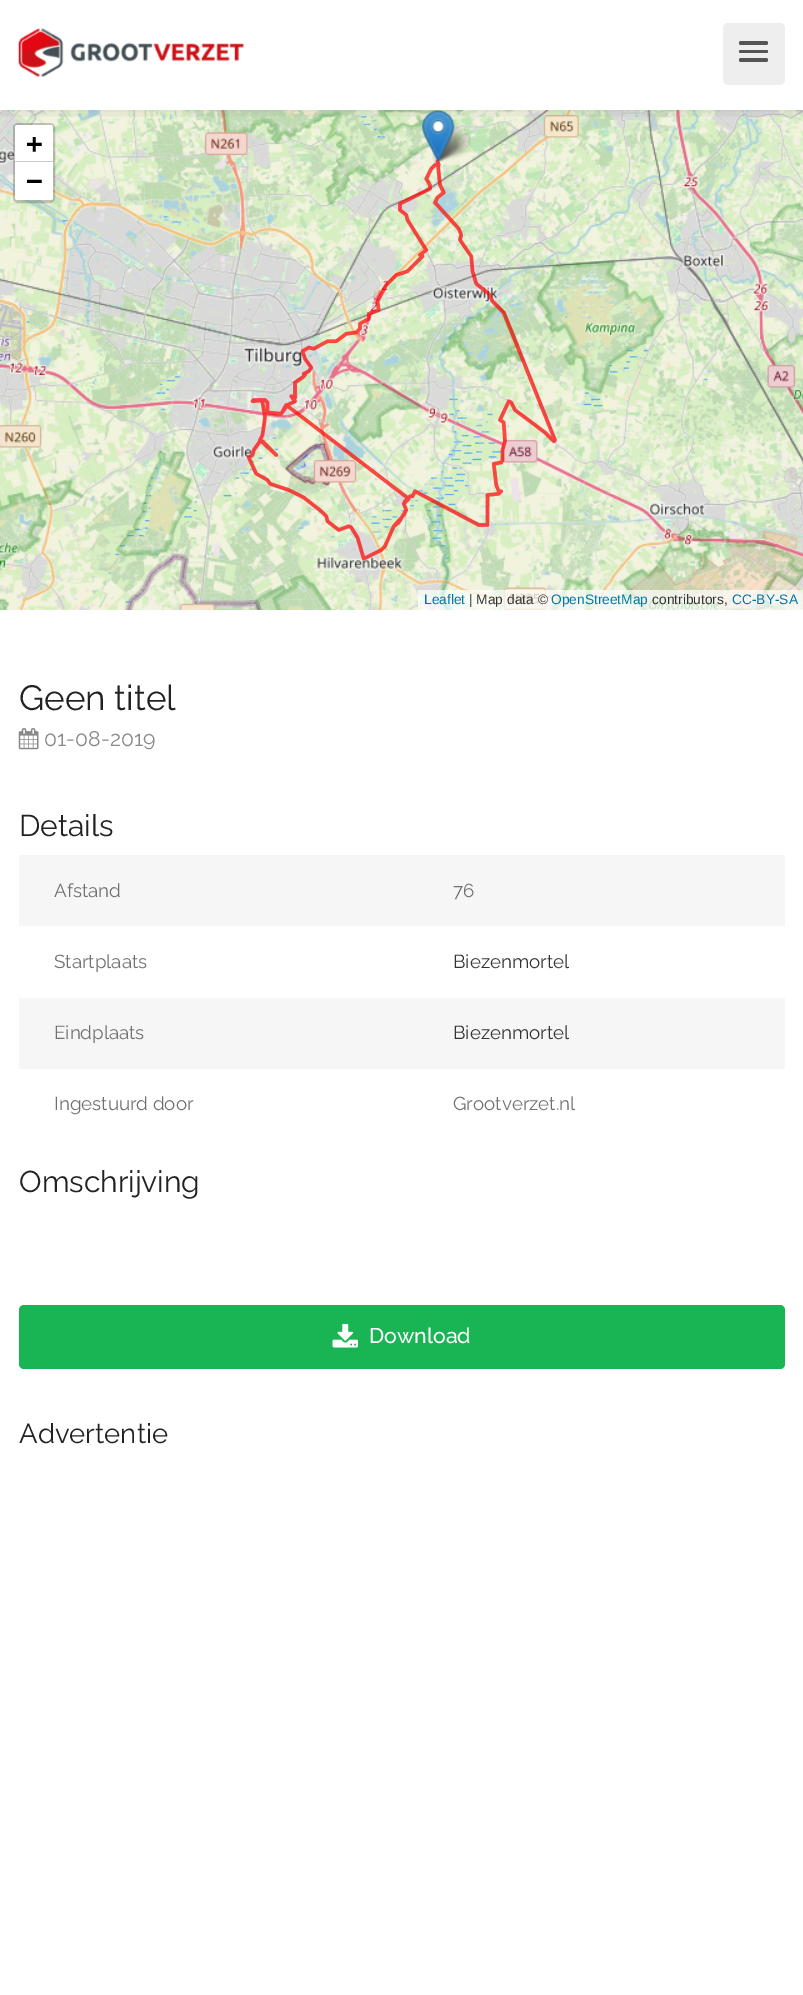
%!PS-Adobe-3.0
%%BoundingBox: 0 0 803 1995
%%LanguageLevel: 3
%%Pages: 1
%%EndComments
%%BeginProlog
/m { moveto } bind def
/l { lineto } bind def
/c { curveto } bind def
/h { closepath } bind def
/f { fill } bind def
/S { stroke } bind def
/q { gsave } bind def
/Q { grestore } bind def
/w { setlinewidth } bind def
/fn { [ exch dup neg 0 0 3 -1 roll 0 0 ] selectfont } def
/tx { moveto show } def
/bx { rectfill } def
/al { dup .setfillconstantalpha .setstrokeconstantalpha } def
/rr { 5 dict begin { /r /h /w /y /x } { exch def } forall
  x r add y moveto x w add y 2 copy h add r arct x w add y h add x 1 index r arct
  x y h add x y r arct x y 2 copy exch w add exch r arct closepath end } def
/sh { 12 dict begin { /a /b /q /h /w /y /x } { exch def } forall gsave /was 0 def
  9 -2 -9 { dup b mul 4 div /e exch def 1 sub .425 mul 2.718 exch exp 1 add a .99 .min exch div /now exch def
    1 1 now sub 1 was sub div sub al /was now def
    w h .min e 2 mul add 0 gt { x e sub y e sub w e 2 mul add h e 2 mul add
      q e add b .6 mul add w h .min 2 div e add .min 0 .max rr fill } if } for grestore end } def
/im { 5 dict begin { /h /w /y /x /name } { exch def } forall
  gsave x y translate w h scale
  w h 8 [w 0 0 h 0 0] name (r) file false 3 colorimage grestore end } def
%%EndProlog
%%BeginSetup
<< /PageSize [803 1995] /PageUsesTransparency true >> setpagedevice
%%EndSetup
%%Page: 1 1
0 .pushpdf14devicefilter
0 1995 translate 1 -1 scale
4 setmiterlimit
1 setgray
0 0 803 1995 bx
(image1.raw) 0 110 290 64 im
(image2.raw) 290 110 320 64 im
(image3.raw) 610 110 193 64 im
(image4.raw) 0 174 290 320 im
(image5.raw) 290 174 320 320 im
(image7.raw) 0 494 290 116 im
(image8.raw) 290 494 320 116 im
(image14.raw) 246 159 311 402 im
(image12.raw) 434 126 37 36 im
(image13.raw) 434 126 37 36 im
(image10.raw) 422 110 33 52 im
(image11.raw) 422 110 33 52 im
q
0 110 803 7 rectclip
0 setgray
0 0 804 110 0 7.5 0.12 sh
Q
(image0.raw) 18 28 226 49 im
0.933 setgray
723 23 62 62 5 rr f
0.333 setgray
739 58 29 4 2 rr f
739 41 29 4 2 rr f
739 50 29 3 1.5 rr f
(image6.raw) 610 174 193 320 im
(image9.raw) 610 494 193 116 im
0.2 al
0 setgray
3 w
14.5 124.5 39 77 3.5 rr S
1 al
1 setgray
17.5 125 m 50.5 125 l 52 125 53 126 53 127.5 c 53 163 l 15 163 l 15 127.5 l 15 126 16 125 17.5 125 c h f
0.8 setgray
15 161 38 1 bx
/DejaVuSansMono-Bold 27.5 fn
0 setgray
(+) 26 153 tx
1 setgray
15 163 m 53 163 l 53 197.5 l 53 199 52 200 50.5 200 c 17.5 200 l 16 200 15 199 15 197.5 c h f
0 setgray
(−) 26 190 tx
0.7 al
1 setgray
418 590 385 20 bx
/LiberationSans-Regular 13.75 fn
1 al
0 0.471 0.659 setrgbcolor
(Leaflet) 424 604 tx
0.2 setgray
(| Map data ©) 469 604 tx
0 0.471 0.659 setrgbcolor
(OpenStreetMap) 551 604 tx
0.2 setgray
(contributors,) 652 604 tx
0 0.471 0.659 setrgbcolor
(CC-BY-SA) 732 604 tx
/Raleway-Regular 35 fn
0.133 setgray
(Geen titel) 19 710 tx
(image15.raw) 18 728 21 22 im
/Raleway-Regular 21.25 fn
0.533 setgray
(01-08-2019) 44 746 tx
/Raleway-Regular 30 fn
0.133 setgray
(Details) 19 836 tx
0.965 setgray
19 855 766 71 bx
/Raleway-Regular 18.75 fn
0.439 setgray
(Afstand) 54 897 tx
(76) 453 897 tx
(Startplaats) 54 968 tx
0.2 setgray
(Biezenmortel) 453 968 tx
0.965 setgray
19 998 766 71 bx
0.439 setgray
(Eindplaats) 54 1039 tx
0.2 setgray
(Biezenmortel) 453 1039 tx
0.439 setgray
(Ingestuurd door) 54 1110 tx
(Grootverzet.nl) 453 1110 tx
/Raleway-Regular 30 fn
0.133 setgray
(Omschrijving) 19 1192 tx
0.098 0.706 0.325 setrgbcolor
19 1305 766 64 5 rr f
(image16.raw) 332 1323 27 25 im
/Raleway-Medium 21.25 fn
1 setgray
(Download) 369 1343 tx
/Raleway-Regular 27.5 fn
0.133 setgray
(Advertentie) 19 1443 tx
.poppdf14devicefilter showpage
%%EOF
